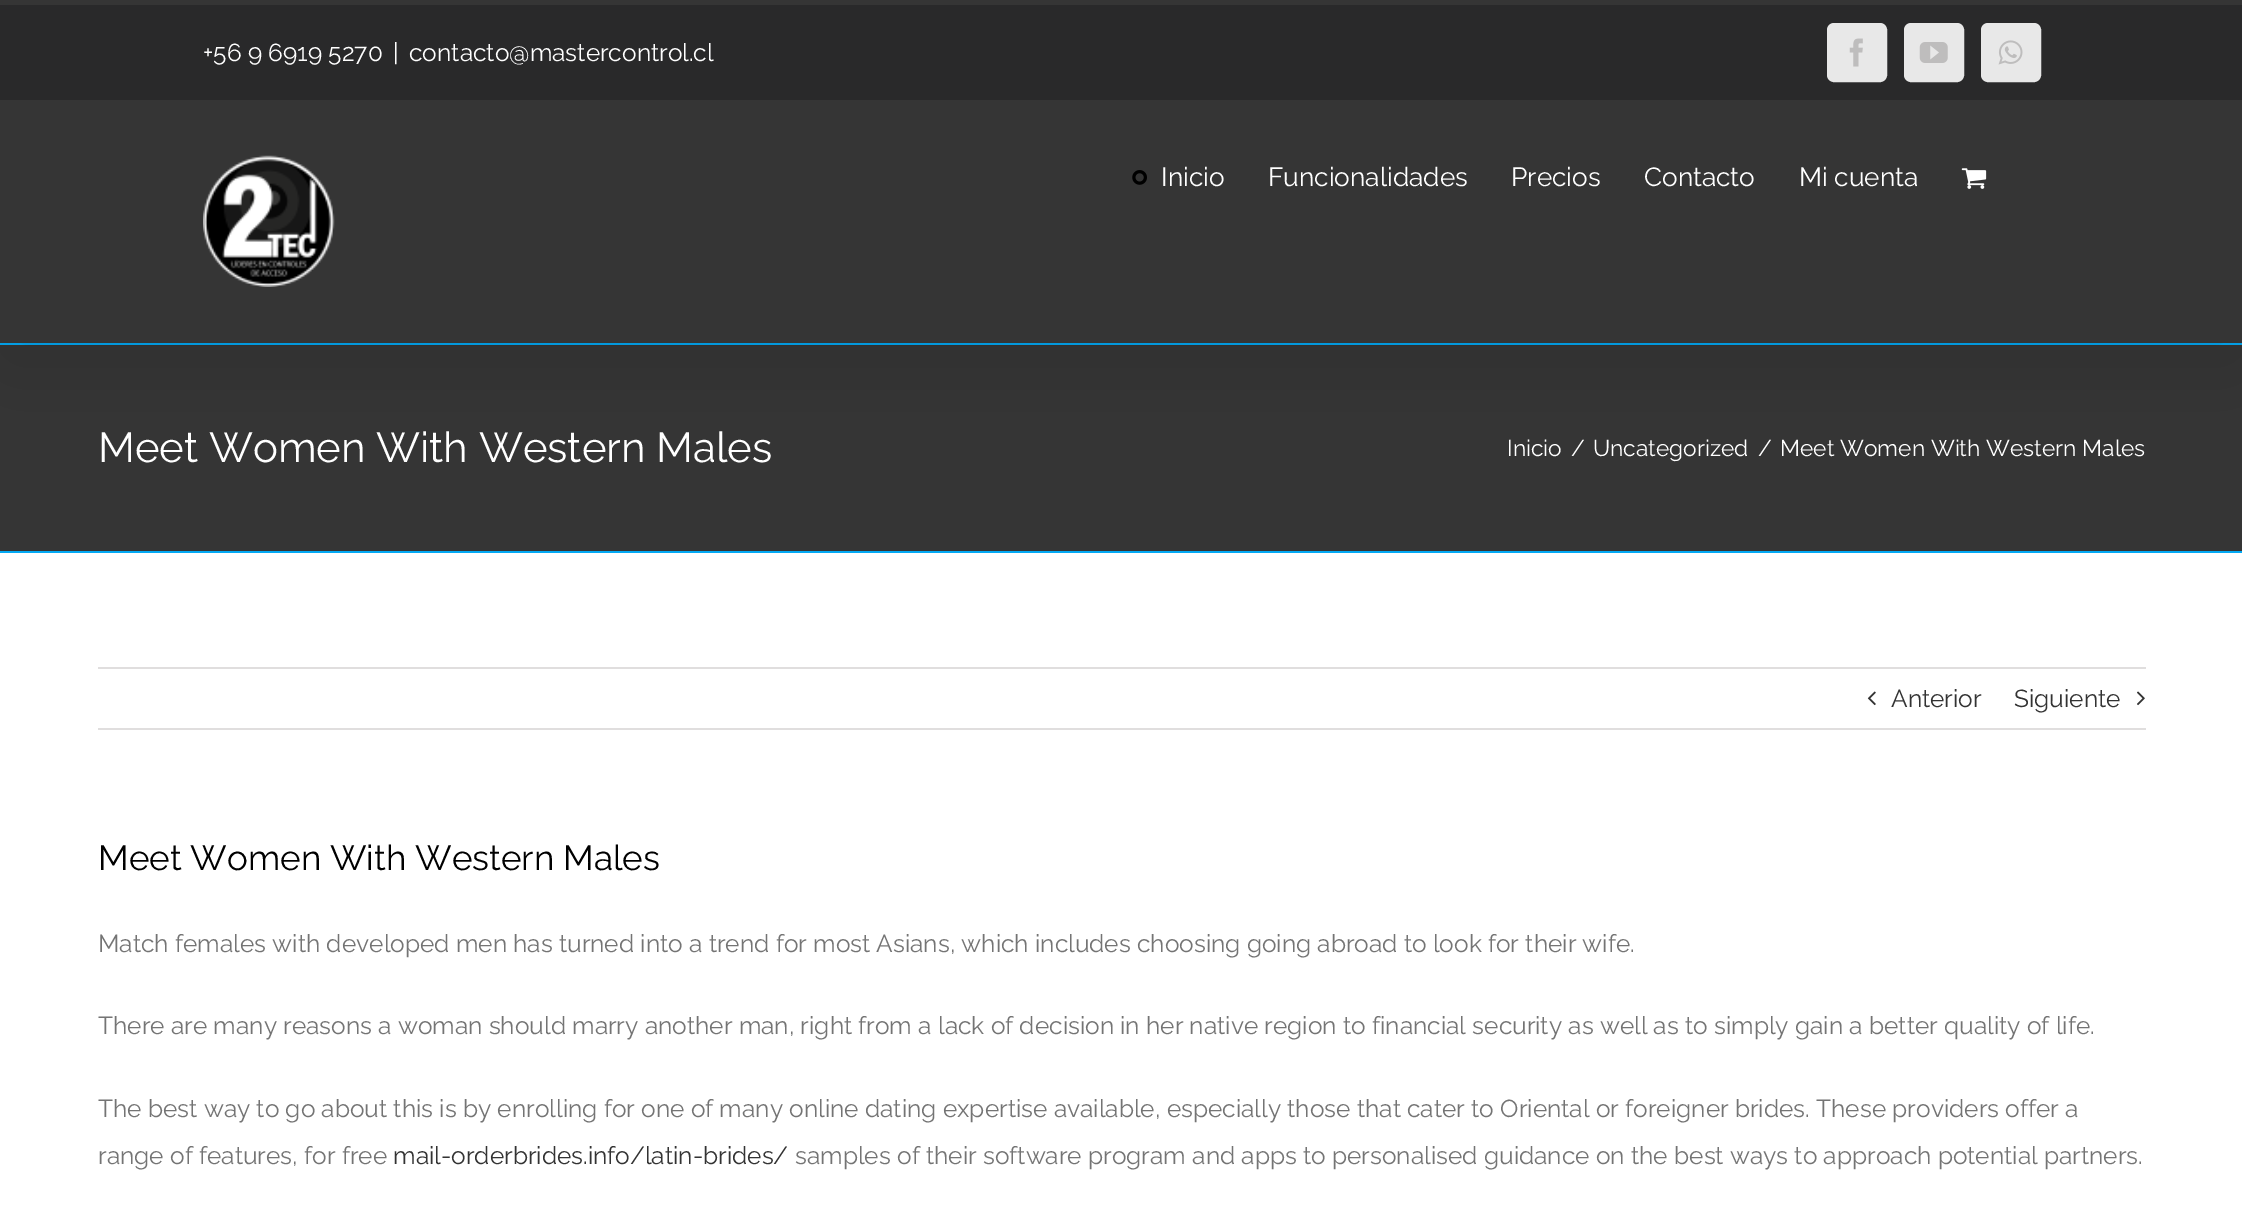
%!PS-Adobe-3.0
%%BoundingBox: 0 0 2242 1226
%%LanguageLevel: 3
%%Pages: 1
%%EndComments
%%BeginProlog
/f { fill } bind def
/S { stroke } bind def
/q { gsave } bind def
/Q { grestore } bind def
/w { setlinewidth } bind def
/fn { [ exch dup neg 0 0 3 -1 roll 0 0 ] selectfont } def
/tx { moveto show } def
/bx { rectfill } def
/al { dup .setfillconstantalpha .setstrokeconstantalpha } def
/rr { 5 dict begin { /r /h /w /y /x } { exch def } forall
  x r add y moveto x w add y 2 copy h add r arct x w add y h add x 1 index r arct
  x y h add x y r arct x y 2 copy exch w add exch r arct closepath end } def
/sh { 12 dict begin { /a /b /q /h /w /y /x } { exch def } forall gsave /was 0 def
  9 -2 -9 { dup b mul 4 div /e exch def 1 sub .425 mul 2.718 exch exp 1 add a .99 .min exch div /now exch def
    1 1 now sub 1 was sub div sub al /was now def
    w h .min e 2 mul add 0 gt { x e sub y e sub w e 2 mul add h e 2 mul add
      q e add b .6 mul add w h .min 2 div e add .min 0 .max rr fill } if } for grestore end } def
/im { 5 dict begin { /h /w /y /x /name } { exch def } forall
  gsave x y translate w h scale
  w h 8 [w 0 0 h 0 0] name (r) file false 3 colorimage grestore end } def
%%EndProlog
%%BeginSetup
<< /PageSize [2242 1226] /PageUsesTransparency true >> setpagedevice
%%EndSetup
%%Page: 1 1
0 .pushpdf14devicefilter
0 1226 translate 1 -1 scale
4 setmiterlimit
1 setgray
0 0 2242 1226 bx
0.208 setgray
0 345 2242 206 bx
0.012 0.663 0.957 setrgbcolor
0 343 2242 2 bx
0 setgray
4 21 2236 336 0 44 0.14 sh
0.161 0.161 0.165 setrgbcolor
0 5 2242 95 bx
0.208 setgray
0 0 2242 5 bx
0 100 2242 243 bx
/Raleway-Thin 24.5 fn
1 setgray
(+56 9 6919 5270) 203 61 tx
(|) 393 61 tx
(contacto@mastercontrol.cl) 409 61 tx
0.91 setgray
1828 24 58 57 6 rr q f Q
2 w
S
(image0.raw) 1849 38 14 29 im
1905 24 58 57 6 rr q f Q
S
(image1.raw) 1919 42 29 21 im
1982 24 58 57 6 rr q f Q
S
(image2.raw) 1998 40 25 25 im
(image3.raw) 203 155 132 132 im
(image4.raw) 1132 170 15 15 im
/Raleway-Thin 26.25 fn
1 setgray
(Inicio) 1161 186 tx
(Funcionalidades) 1268 186 tx
(Precios) 1511 186 tx
(Contacto) 1644 186 tx
(Mi cuenta) 1799 186 tx
(image5.raw) 1961 168 26 21 im
0.012 0.663 0.957 setrgbcolor
0 551 2242 2 bx
/Raleway-Thin 42 fn
1 setgray
(Meet Women With Western Males) 98 462 tx
/Raleway-Thin 22.75 fn
(Inicio) 1507 456 tx
(/) 1571 456 tx
(Uncategorized) 1593 456 tx
(/) 1758 456 tx
(Meet Women With Western Males) 1780 456 tx
0.878 0.871 0.871 setrgbcolor
98 667 2048 2 bx
98 728 2048 2 bx
(image6.raw) 1867 691 9 15 im
/Raleway-Thin 24.5 fn
0.2 setgray
(Anterior) 1891 707 tx
(Siguiente) 2014 707 tx
(image7.raw) 2137 691 8 15 im
/Raleway-Thin 35 fn
0 setgray
(Meet Women With Western Males) 98 870 tx
/Raleway-Thin 24.5 fn
0.455 setgray
(Match females with developed men has turned into a trend for most Asians, which includes choosing going abroad to look for their wife.) 98 952 tx
(There are many reasons a woman should marry another man, right from a lack of decision in her native region to financial security as well as to simply gain a better quality of life.) 98 1034 tx
(The best way to go about this is by enrolling for one of many online dating expertise available, especially those that cater to Oriental or foreigner brides. These providers offer a) 98 1117 tx
(range of features, for free) 98 1164 tx
0.2 setgray
(mail-orderbrides.info/latin-brides/) 393 1164 tx
0.455 setgray
(samples of their software program and apps to personalised guidance on the best ways to approach potential partners.) 795 1164 tx
.poppdf14devicefilter showpage
%%EOF
